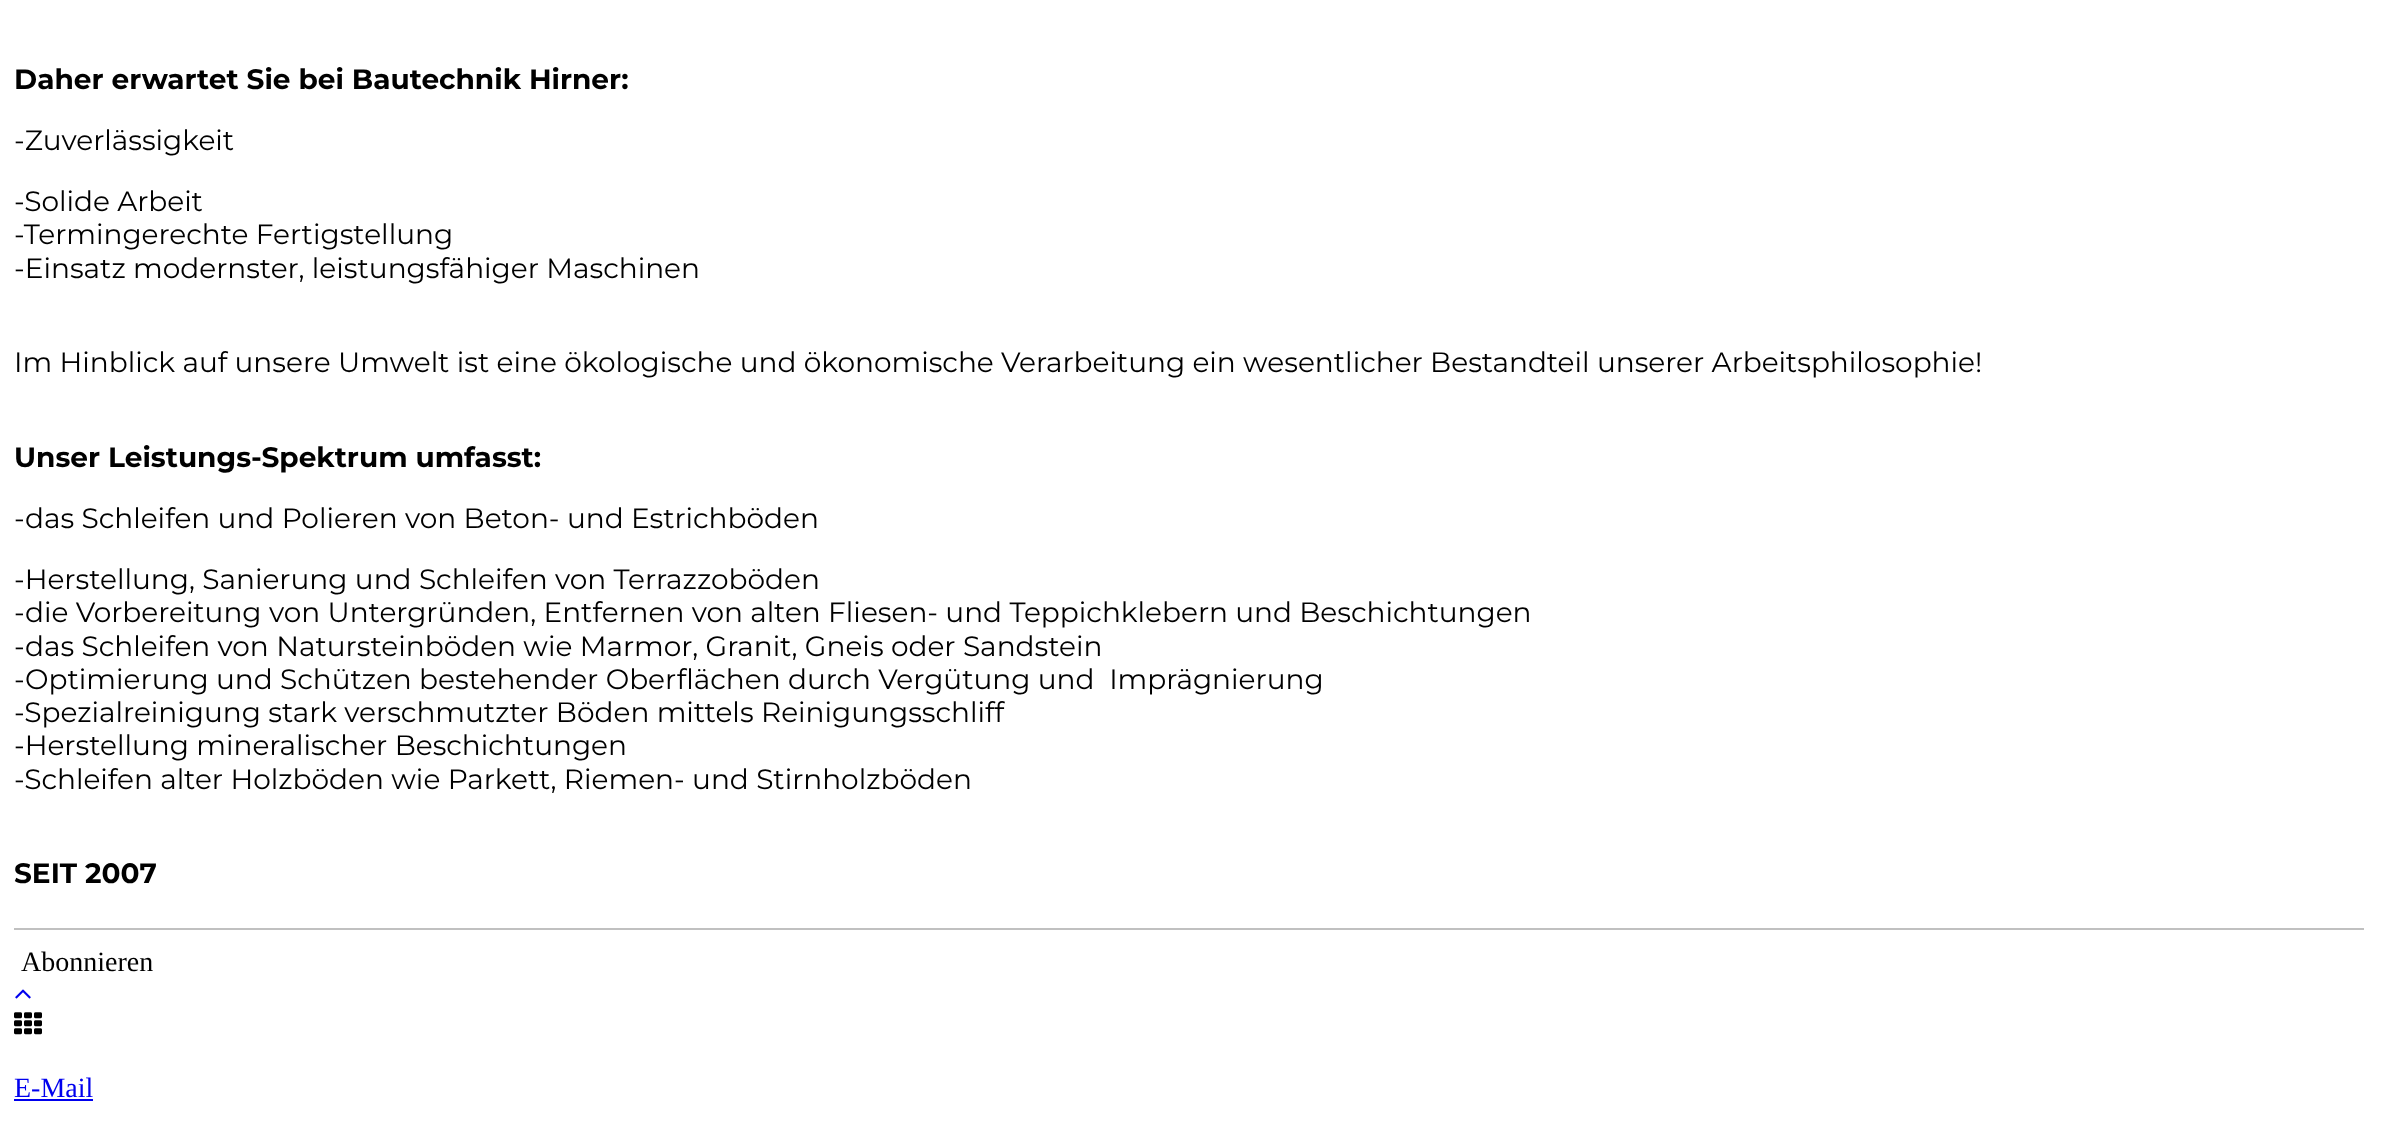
async function draw(canvas) {
	canvas.width = 2387;
	canvas.height = 1143;
	const c = canvas.getContext('2d');
	c.miterLimit = 4;
	c.fontKerning = 'normal';
	async function loadImage(src) {
		const img = new Image();
		img.src = src;
		await img.decode();
		return img;
	}

	c.fillStyle = '#fff';
	c.fillRect(0, 0, 2387, 1143);
	c.fillStyle = '#c0c0c0';
	c.fillRect(14, 928, 2350, 2);
	c.font = 'bold 28px Montserrat';
	c.fillStyle = '#000';
	c.fillText('Daher erwartet Sie bei Bautechnik Hirner:', 14, 89);
	c.font = '28px Montserrat';
	for (const [text, x, y] of [
		['-Zuverlässigkeit', 14, 150],
		['-Solide Arbeit', 14, 211],
		['-Termingerechte Fertigstellung', 14, 244],
		['-Einsatz modernster, leistungsfähiger Maschinen', 14, 278],
		['Im Hinblick auf unsere Umwelt ist eine ökologische und ökonomische Verarbeitung ein wesentlicher Bestandteil unserer Arbeitsphilosophie!', 14, 372],
	]) {
		c.fillText(text, x, y);
	}
	c.font = 'bold 28px Montserrat';
	c.fillText('Unser Leistungs-Spektrum umfasst:', 14, 467);
	c.font = '28px Montserrat';
	for (const [text, x, y] of [
		['-das Schleifen und Polieren von Beton- und Estrichböden', 14, 528],
		['-Herstellung, Sanierung und Schleifen von Terrazzoböden', 14, 589],
		['-die Vorbereitung von Untergründen, Entfernen von alten Fliesen- und Teppichklebern und Beschichtungen', 14, 622],
		['-das Schleifen von Natursteinböden wie Marmor, Granit, Gneis oder Sandstein', 14, 656],
		['-Optimierung und Schützen bestehender Oberflächen durch Vergütung und  Imprägnierung', 14, 689],
		['-Spezialreinigung stark verschmutzter Böden mittels Reinigungsschliff', 14, 722],
		['-Herstellung mineralischer Beschichtungen', 14, 755],
		['-Schleifen alter Holzböden wie Parkett, Riemen- und Stirnholzböden', 14, 789],
	]) {
		c.fillText(text, x, y);
	}
	c.font = 'bold 28px Montserrat';
	c.fillText('SEIT 2007', 14, 883);
	c.font = '28px Liberation Serif';
	c.fillText('Abonnieren', 21, 971);
	c.drawImage(await loadImage('img1.png'), 15, 989, 16, 10);
	c.drawImage(await loadImage('img2.png'), 14, 1012, 28, 23);
	c.fillStyle = '#00e';
	c.fillText('E-Mail', 14, 1097);
	c.fillRect(14, 1099, 79, 2);
}

draw(document.querySelector('canvas'));
